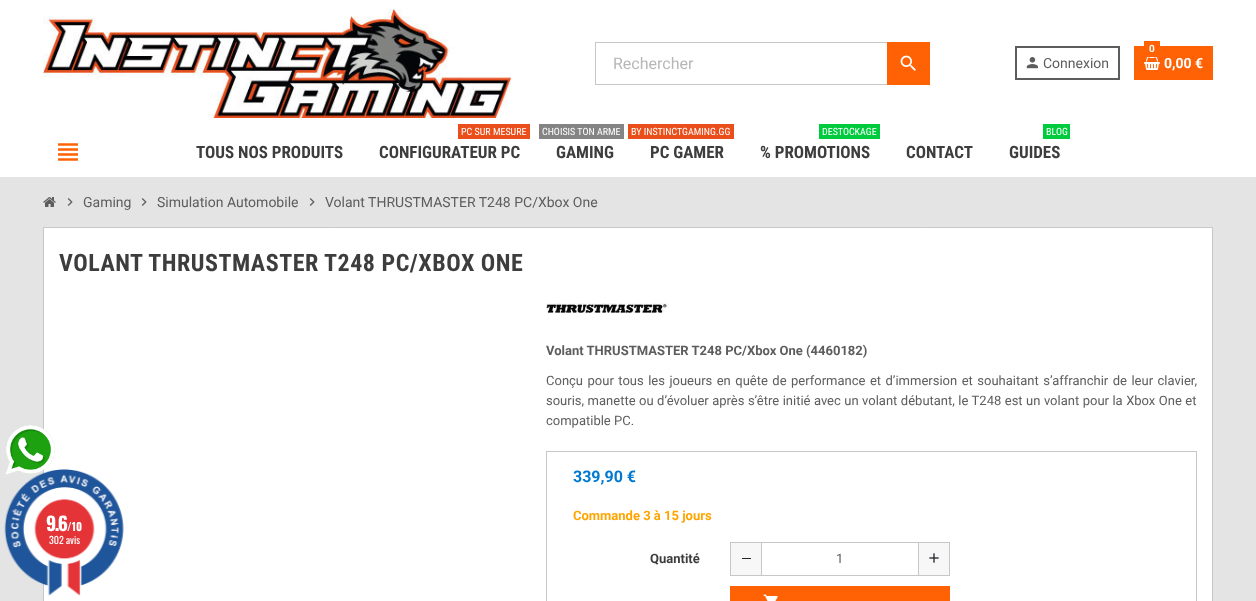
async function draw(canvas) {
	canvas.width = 1256;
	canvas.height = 601;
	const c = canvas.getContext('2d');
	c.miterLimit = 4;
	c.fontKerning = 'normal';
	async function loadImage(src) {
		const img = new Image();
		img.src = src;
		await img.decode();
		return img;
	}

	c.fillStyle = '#fff';
	c.fillRect(0, 0, 1256, 601);
	c.drawImage(await loadImage('img1.png'), 43, 9, 468, 109);
	c.strokeStyle = '#c7c7c7';
	c.strokeRect(595.5, 42.5, 333, 42);
	c.font = '16px Roboto';
	c.fillStyle = '#b7b7b7';
	c.fillText('Rechercher', 613, 69);
	c.fillStyle = '#ff6204';
	c.fillRect(887, 42, 43, 43);
	c.drawImage(await loadImage('img2.png'), 900, 55, 16, 16);
	c.strokeStyle = '#5d5d5d';
	c.lineWidth = 2;
	c.strokeRect(1016, 47, 103, 32);
	c.drawImage(await loadImage('img3.png'), 1026, 57, 12, 12);
	c.font = '14px Roboto';
	c.fillStyle = '#5d5d5d';
	c.fillText('Connexion', 1043, 68);
	c.fillStyle = '#ff6204';
	c.fillRect(1134, 46, 79, 34);
	c.fillRect(1144, 41, 16, 5);
	c.font = 'bold 10px Roboto';
	c.fillStyle = '#fff';
	c.fillText('0', 1149, 52);
	c.drawImage(await loadImage('img4.png'), 1144, 57, 16, 13);
	c.font = 'bold 14px Roboto';
	c.fillText('0,00 €', 1164, 68);
	c.drawImage(await loadImage('img5.png'), 58, 143, 20, 18);
	c.font = 'bold 17px Roboto Condensed';
	c.fillStyle = '#3d3d3d';
	c.fillText('TOUS NOS PRODUITS', 196, 158);
	c.fillStyle = '#e94e1b';
	c.fillRect(458, 124, 72, 15);
	c.font = '10px Roboto Condensed';
	c.fillStyle = '#fff';
	c.fillText('PC SUR MESURE', 461, 135);
	c.font = 'bold 17px Roboto Condensed';
	c.fillStyle = '#3d3d3d';
	c.fillText('CONFIGURATEUR PC', 379, 158);
	c.fillStyle = '#848484';
	c.fillRect(539, 124, 85, 15);
	c.font = '10px Roboto Condensed';
	c.fillStyle = '#fff';
	c.fillText('CHOISIS TON ARME', 542, 135);
	c.font = 'bold 17px Roboto Condensed';
	c.fillStyle = '#3d3d3d';
	c.fillText('GAMING', 556, 158);
	c.fillStyle = '#e94e1b';
	c.fillRect(628, 124, 106, 15);
	c.font = '10px Roboto Condensed';
	c.fillStyle = '#fff';
	c.fillText('BY INSTINCTGAMING.GG', 631, 135);
	c.font = 'bold 17px Roboto Condensed';
	c.fillStyle = '#3d3d3d';
	c.fillText('PC GAMER', 650, 158);
	c.fillStyle = '#00ca3d';
	c.fillRect(819, 124, 61, 15);
	c.font = '10px Roboto Condensed';
	c.fillStyle = '#fff';
	c.fillText('DESTOCKAGE', 822, 135);
	c.font = 'bold 17px Roboto Condensed';
	c.fillStyle = '#3d3d3d';
	c.fillText('% PROMOTIONS', 760, 158);
	c.fillText('CONTACT', 906, 158);
	c.fillStyle = '#00ca3d';
	c.fillRect(1043, 124, 27, 15);
	c.font = '10px Roboto Condensed';
	c.fillStyle = '#fff';
	c.fillText('BLOG', 1046, 135);
	c.font = 'bold 17px Roboto Condensed';
	c.fillStyle = '#3d3d3d';
	c.fillText('GUIDES', 1009, 158);
	c.fillStyle = '#e4e4e4';
	c.fillRect(0, 177, 1256, 424);
	c.fillStyle = '#fff';
	c.beginPath();
	c.rect(43.5, 227.5, 1169, 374);
	c.fill();
	c.strokeStyle = '#c7c7c7';
	c.lineWidth = 1;
	c.stroke();
	c.drawImage(await loadImage('img6.png'), 5, 425, 50, 50);
	c.drawImage(await loadImage('img7.png'), 43, 197, 13, 10);
	c.drawImage(await loadImage('img8.png'), 67, 198, 6, 8);
	c.font = '14px Roboto';
	c.fillStyle = '#5d5d5d';
	c.fillText('Gaming', 83, 207);
	c.drawImage(await loadImage('img8.png'), 141, 198, 6, 8);
	c.fillText('Simulation Automobile', 157, 207);
	c.drawImage(await loadImage('img8.png'), 309, 198, 6, 8);
	c.fillText('Volant THRUSTMASTER T248 PC/Xbox One', 325, 207);
	c.letterSpacing = '0.5px';
	c.font = 'bold 24px Roboto Condensed';
	c.fillStyle = '#3d3d3d';
	c.fillText('VOLANT THRUSTMASTER T248 PC/XBOX ONE', 59, 271);
	c.drawImage(await loadImage('img9.png'), 546, 303, 123, 10);
	c.letterSpacing = '0px';
	c.font = 'bold 13px Roboto';
	c.fillStyle = '#5d5d5d';
	c.fillText('Volant THRUSTMASTER T248 PC/Xbox One (4460182)', 546, 355);
	c.wordSpacing = '1.25px';
	c.font = '13px Roboto';
	c.fillText('Conçu pour tous les joueurs en quête de performance et d’immersion et souhaitant s’affranchir de leur clavier,', 546, 385);
	c.wordSpacing = '0.25px';
	c.fillText('souris, manette ou d’évoluer après s’être initié avec un volant débutant, le T248 est un volant pour la Xbox One et', 546, 405);
	c.wordSpacing = '0px';
	c.fillText('compatible PC.', 546, 425);
	c.strokeRect(546.5, 451.5, 650, 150);
	c.font = 'bold 16px Roboto';
	c.fillStyle = '#007ad1';
	c.fillText('339,90 €', 573, 482);
	c.font = 'bold 13px Roboto';
	c.fillStyle = '#ffa500';
	c.fillText('Commande 3 à 15 jours', 573, 520);
	c.fillStyle = '#3d3d3d';
	c.fillText('Quantité', 650, 563);
	c.strokeRect(730.5, 542.5, 219, 33);
	for (const [x, y, w, h, color] of [
		[731, 543, 30, 32, '#f7f7f7'],
		[742, 558, 9, 1, '#212529'],
		[918, 543, 1, 32, '#c7c7c7'],
		[761, 543, 1, 32, '#c7c7c7'],
	]) {
		c.fillStyle = color;
		c.fillRect(x, y, w, h);
	}
	c.font = '13px Roboto';
	c.fillStyle = '#5d5d5d';
	c.fillText('1', 836, 563);
	c.fillStyle = '#f7f7f7';
	c.fillRect(919, 543, 30, 32);
	c.drawImage(await loadImage('img10.png'), 929, 553, 10, 10);
	c.fillStyle = '#ff6204';
	c.fillRect(730, 586, 220, 15);
	c.drawImage(await loadImage('img11.png'), 763, 594, 15, 7);
	c.drawImage(await loadImage('img12.png'), 4, 468, 120, 128);
	c.letterSpacing = '-1.5px';
	c.font = 'bold 19px Oswald';
	c.fillStyle = '#fff';
	c.fillText('9.6', 46, 531);
	c.letterSpacing = '0px';
	c.font = 'bold 11px Oswald';
	c.fillText('/10', 67, 531);
	c.font = '10px Oswald';
	c.fillText('302 avis', 49, 544);
}

draw(document.querySelector('canvas'));
